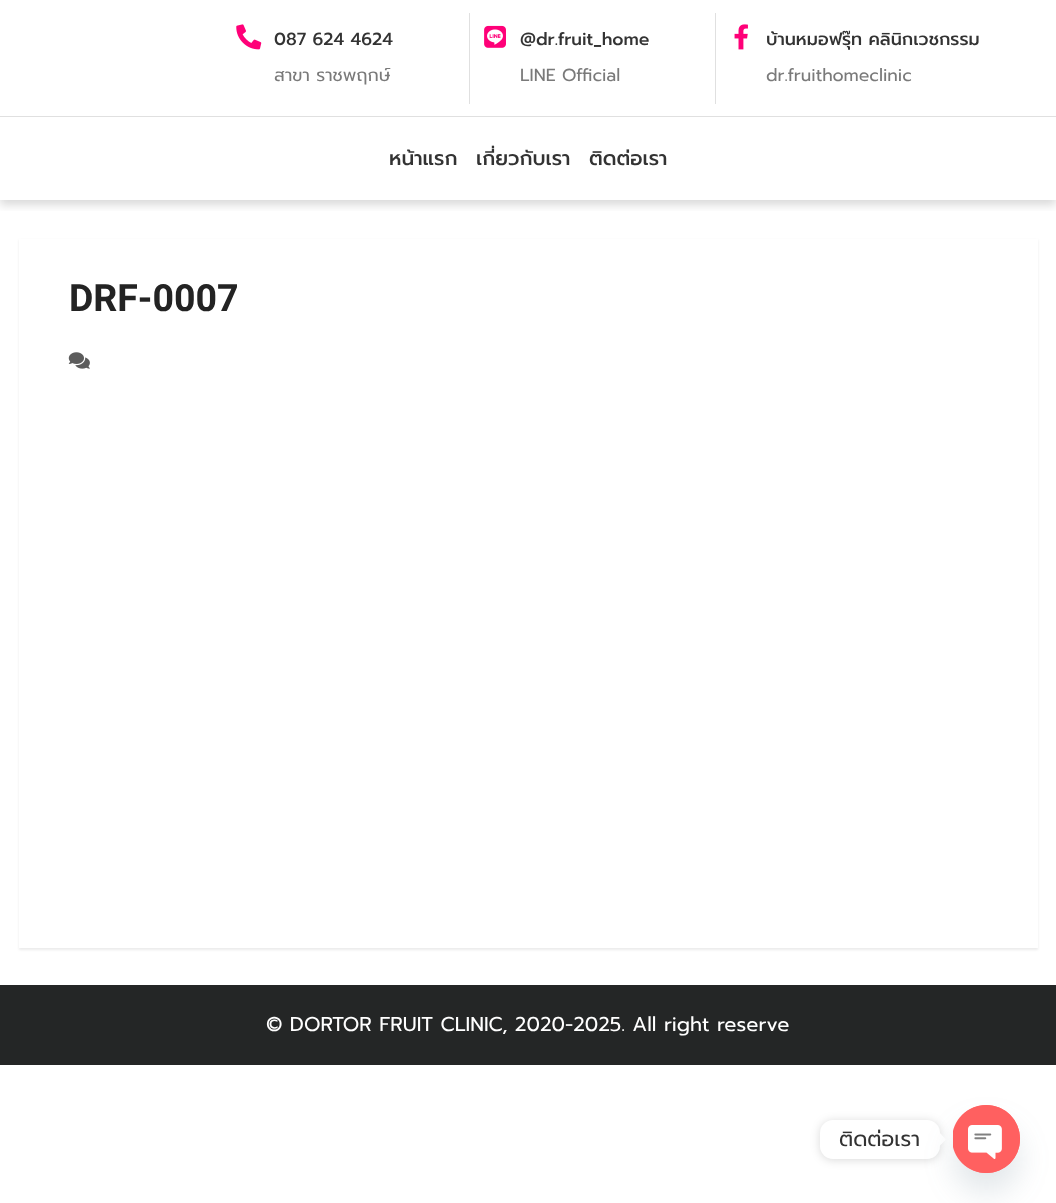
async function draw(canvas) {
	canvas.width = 1056;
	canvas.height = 1203;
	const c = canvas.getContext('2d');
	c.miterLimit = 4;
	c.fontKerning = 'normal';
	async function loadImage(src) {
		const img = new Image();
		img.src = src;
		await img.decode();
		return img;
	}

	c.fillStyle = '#fff';
	c.fillRect(0, 0, 1056, 1203);
	c.fillStyle = '#e0e0e0';
	c.fillRect(0, 116, 1056, 1);
	c.fillRect(469, 13, 1, 91);
	c.drawImage(await loadImage('img1.png'), 236, 24, 26, 26);
	c.font = '500 17.5px Prompt';
	c.fillStyle = '#333';
	c.fillText('087 624 4624', 274, 45);
	c.font = '17.5px Prompt';
	c.fillStyle = '#7a7a7a';
	c.fillText('สาขา ราชพฤกษ์', 274, 81);
	c.fillStyle = '#e0e0e0';
	c.fillRect(715, 13, 1, 91);
	c.drawImage(await loadImage('img2.png'), 484, 25, 22, 23);
	c.font = '500 17.5px Prompt';
	c.fillStyle = '#333';
	c.fillText('@dr.fruit_home', 520, 45);
	c.font = '17.5px Prompt';
	c.fillStyle = '#7a7a7a';
	c.fillText('LINE Official', 520, 81);
	c.drawImage(await loadImage('img3.png'), 734, 24, 14, 26);
	c.font = '500 17.5px Prompt';
	c.fillStyle = '#333';
	c.fillText('บ้านหมอฟรุ๊ท คลินิกเวชกรรม', 766, 45);
	c.font = '17.5px Prompt';
	c.fillStyle = '#7a7a7a';
	c.fillText('dr.fruithomeclinic', 766, 81);
	c.save();
	c.beginPath();
	c.rect(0, 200, 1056, 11);
	c.clip();
	c.fillStyle = '#00000026';
	c.filter = 'blur(5px)';
	c.beginPath();
	c.rect(0, 123, 1056, 82);
	c.fill();
	c.filter = 'none';
	c.restore();
	c.font = '500 20px Prompt';
	c.fillStyle = '#333';
	for (const [text, x, y] of [
		['หน้าแรก', 389, 165],
		['เกี่ยวกับเรา', 476, 165],
		['ติดต่อเรา', 589, 165],
	]) {
		c.fillText(text, x, y);
	}
	c.fillStyle = '#00000014';
	c.filter = 'blur(1px)';
	c.beginPath();
	c.rect(19, 240, 1019, 710);
	c.fill();
	c.filter = 'none';
	c.fillStyle = '#fff';
	c.fillRect(19, 239, 1019, 709);
	c.font = 'bold 37.5px Heebo';
	c.fillStyle = '#232323';
	c.fillText('DRF-0007', 69, 311);
	c.drawImage(await loadImage('img4.png'), 68, 352, 22, 17);
	c.fillStyle = '#242626';
	c.fillRect(0, 985, 1056, 80);
	c.font = '20px Prompt';
	c.fillStyle = '#fff';
	c.fillText('© DORTOR FRUIT CLINIC, 2020-2025. All right reserve', 266, 1031);
	c.fillStyle = '#00000026';
	c.filter = 'blur(5px)';
	c.beginPath();
	c.roundRect(820, 1121, 120, 39, 13);
	c.fill();
	c.filter = 'none';
	c.fillStyle = '#fff';
	c.beginPath();
	c.roundRect(820, 1120, 120, 39, 13);
	c.fill();
	c.font = '21px Prompt';
	c.fillStyle = '#333';
	c.fillText('ติดต่อเรา', 839, 1146);
	c.fillStyle = '#fff';
	c.beginPath();
	c.moveTo(940, 1145.5);
	c.lineTo(940, 1133);
	c.lineTo(946, 1139.5);
	c.closePath();
	c.fill();
	c.fillStyle = '#49687e29';
	c.filter = 'blur(15px)';
	c.beginPath();
	c.roundRect(953, 1125, 67, 68, 33.5);
	c.fill();
	c.filter = 'none';
	c.fillStyle = '#ff6060';
	c.beginPath();
	c.roundRect(953, 1105, 67, 68, 33.5);
	c.fill();
	c.drawImage(await loadImage('img5.png'), 953, 1105, 67, 68);
}

draw(document.querySelector('canvas'));
